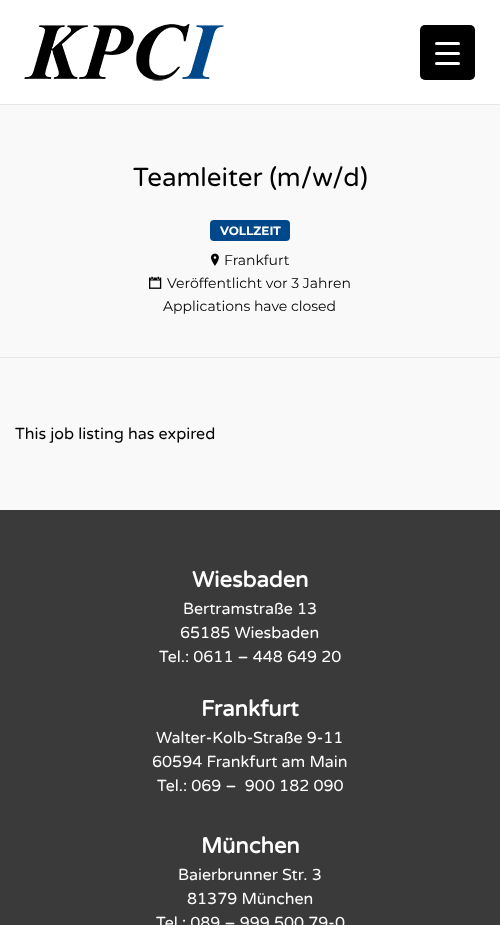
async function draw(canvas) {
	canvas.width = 500;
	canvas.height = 925;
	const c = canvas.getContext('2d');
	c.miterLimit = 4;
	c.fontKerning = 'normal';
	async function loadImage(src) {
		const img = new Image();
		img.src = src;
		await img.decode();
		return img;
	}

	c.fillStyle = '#f9f9f9';
	c.fillRect(0, 0, 500, 925);
	c.fillStyle = '#fff';
	c.fillRect(0, 0, 500, 104);
	c.fillStyle = '#000';
	c.beginPath();
	c.roundRect(420, 25, 55, 55, 5);
	c.fill();
	c.fillStyle = '#fff';
	c.beginPath();
	c.roundRect(435, 52, 25, 3, 1.5);
	c.fill();
	c.beginPath();
	c.roundRect(435, 42, 25, 3, 1.5);
	c.fill();
	c.beginPath();
	c.roundRect(435, 62, 25, 3, 1.5);
	c.fill();
	c.fillStyle = '#e6e6e6';
	c.fillRect(0, 104, 500, 1);
	c.drawImage(await loadImage('img1.png'), 24, 24, 200, 57);
	c.fillStyle = '#e7e7e7';
	c.fillRect(0, 357, 500, 1);
	c.font = '26px Varela Round';
	c.fillStyle = '#000';
	c.fillText('Teamleiter (m/w/d)', 133, 186);
	c.fillStyle = '#004889';
	c.beginPath();
	c.roundRect(210, 220, 80, 21, 4);
	c.fill();
	c.font = 'bold 12px Montserrat';
	c.fillStyle = '#fff';
	c.fillText('VOLLZEIT', 220, 235);
	c.drawImage(await loadImage('img2.png'), 211, 253, 8, 13);
	c.font = '14px Montserrat';
	c.fillStyle = '#000';
	c.fillText('Frankfurt', 224, 265);
	c.drawImage(await loadImage('img3.png'), 149, 276, 13, 13);
	c.fillText('Veröffentlicht vor 3 Jahren', 167, 288);
	c.fillText('Applications have closed', 163, 311);
	c.font = '16px Varela Round';
	c.fillText('This job listing has expired', 15, 439);
	c.fillStyle = '#3a3a3a';
	c.fillRect(0, 510, 500, 415);
	c.font = 'bold 22px Varela Round';
	c.fillStyle = '#fff';
	c.fillText('Wiesbaden', 192, 587);
	c.font = '16px Varela Round';
	for (const [text, x, y] of [
		['Bertramstraße 13', 183, 614],
		['65185 Wiesbaden', 180, 638],
		['Tel.: 0611 – 448 649 20', 159, 662],
	]) {
		c.fillText(text, x, y);
	}
	c.font = 'bold 22px Varela Round';
	c.fillText('Frankfurt', 201, 716);
	c.font = '16px Varela Round';
	for (const [text, x, y] of [
		['Walter-Kolb-Straße 9-11', 156, 743],
		['60594 Frankfurt am Main', 152, 767],
		['Tel.: 069 –  900 182 090', 157, 791],
	]) {
		c.fillText(text, x, y);
	}
	c.font = 'bold 22px Varela Round';
	c.fillText('München', 201, 853);
	c.font = '16px Varela Round';
	for (const [text, x, y] of [
		['Baierbrunner Str. 3', 178, 880],
		['81379 München', 187, 904],
		['Tel.: 089 – 999 500 79-0', 156, 928],
	]) {
		c.fillText(text, x, y);
	}
}

draw(document.querySelector('canvas'));
